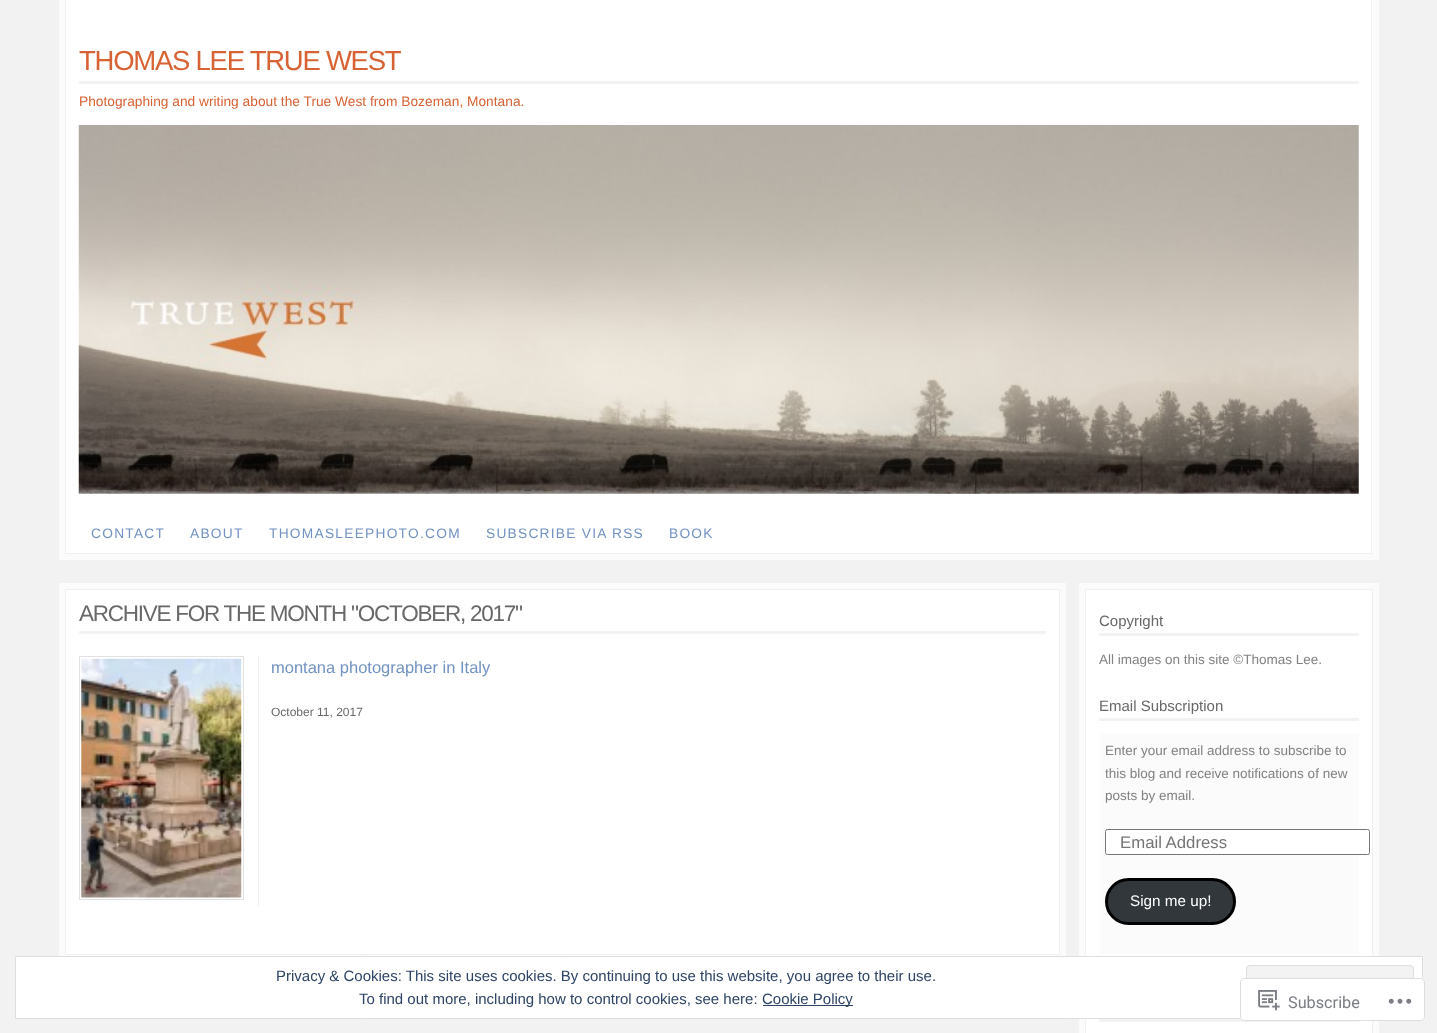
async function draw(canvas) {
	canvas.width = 1437;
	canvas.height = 1033;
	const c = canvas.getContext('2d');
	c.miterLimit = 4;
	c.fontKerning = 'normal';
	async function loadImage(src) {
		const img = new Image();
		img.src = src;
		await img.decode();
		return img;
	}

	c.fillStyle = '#f2f2f2';
	c.fillRect(0, 0, 1437, 1033);
	for (const [x, y, w, h, color] of [
		[59, 0, 1320, 560, '#fbfbfb'],
		[66, 0, 1307, 553, '#fff'],
		[1371, 0, 1, 554, '#f0f0f0'],
		[65, 553, 1308, 1, '#f0f0f0'],
		[65, 0, 1, 554, '#f0f0f0'],
		[79, 81, 1280, 3, '#f2f2f2'],
	]) {
		c.fillStyle = color;
		c.fillRect(x, y, w, h);
	}
	c.letterSpacing = '-1.25px';
	c.font = '27.5px Liberation Sans';
	c.fillStyle = '#d76233';
	c.fillText('THOMAS LEE TRUE WEST', 79, 70);
	c.letterSpacing = '0px';
	c.font = '13.75px Liberation Sans';
	c.fillText('Photographing and writing about the True West from Bozeman, Montana.', 79, 106);
	c.drawImage(await loadImage('img1.png'), 78, 125, 1281, 369);
	c.letterSpacing = '1.25px';
	c.fillStyle = '#7292c2';
	for (const [text, x, y] of [
		['CONTACT', 91, 538],
		['ABOUT', 190, 538],
		['THOMASLEEPHOTO.COM', 269, 538],
		['SUBSCRIBE VIA RSS', 486, 538],
		['BOOK', 669, 538],
	]) {
		c.fillText(text, x, y);
	}
	c.fillStyle = '#fbfbfb';
	c.fillRect(59, 583, 1007, 373);
	c.fillStyle = '#fff';
	c.beginPath();
	c.rect(65.5, 589.5, 994, 365);
	c.fill();
	c.strokeStyle = '#f0f0f0';
	c.stroke();
	c.fillStyle = '#f2f2f2';
	c.fillRect(79, 631, 967, 3);
	c.letterSpacing = '-1.25px';
	c.font = '22.5px Liberation Sans';
	c.fillStyle = '#686868';
	c.fillText('ARCHIVE FOR THE MONTH "OCTOBER, 2017"', 79, 621);
	c.fillStyle = '#f0f0f0';
	c.fillRect(258, 656, 1, 250);
	c.strokeStyle = '#e1e1e1';
	c.strokeRect(79.5, 656.5, 164, 243);
	c.drawImage(await loadImage('img2.png'), 81, 658, 161, 240);
	c.letterSpacing = '0px';
	c.font = '16.5px Liberation Sans';
	c.fillStyle = '#7292c2';
	c.fillText('montana photographer in Italy', 271, 673);
	c.font = '12px Liberation Sans';
	c.fillStyle = '#686868';
	c.fillText('October 11, 2017', 271, 716);
	c.fillStyle = '#fbfbfb';
	c.fillRect(1079, 583, 300, 450);
	c.fillStyle = '#fff';
	c.beginPath();
	c.rect(1085.5, 589.5, 287, 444);
	c.fill();
	c.strokeStyle = '#f0f0f0';
	c.stroke();
	c.fillStyle = '#f2f2f2';
	c.fillRect(1099, 633, 260, 3);
	c.font = '15px Liberation Sans';
	c.fillStyle = '#686868';
	c.fillText('Copyright', 1099, 626);
	c.font = '13.5px Liberation Sans';
	c.fillStyle = '#828282';
	c.fillText('All images on this site ©Thomas Lee.', 1099, 664);
	c.fillStyle = '#f2f2f2';
	c.fillRect(1099, 718, 260, 3);
	c.font = '15px Liberation Sans';
	c.fillStyle = '#686868';
	c.fillText('Email Subscription', 1099, 711);
	c.fillStyle = '#fbfbfb';
	c.fillRect(1099, 733, 260, 221);
	c.font = '13.5px Liberation Sans';
	c.fillStyle = '#828282';
	for (const [text, x, y] of [
		['Enter your email address to subscribe to', 1105, 755],
		['this blog and receive notifications of new', 1105, 778],
		['posts by email.', 1105, 800],
	]) {
		c.fillText(text, x, y);
	}
	c.fillStyle = '#fff';
	c.beginPath();
	c.roundRect(1105.5, 829.5, 264, 25, 2);
	c.fill();
	c.strokeStyle = '#767676';
	c.stroke();
	c.font = '16.75px Liberation Sans';
	c.fillStyle = '#757575';
	c.fillText('Email Address', 1120, 848);
	c.fillStyle = '#32373c';
	c.beginPath();
	c.roundRect(1106.5, 879.5, 128, 44, 22);
	c.fill();
	c.strokeStyle = '#000';
	c.lineWidth = 3;
	c.stroke();
	c.font = '15.25px Liberation Sans';
	c.fillStyle = '#fff';
	c.fillText('Sign me up!', 1130, 906);
	c.fillStyle = '#f2f2f2';
	c.fillRect(1099, 1019, 260, 3);
	c.fillStyle = '#fff';
	c.beginPath();
	c.rect(15.5, 956.5, 1407, 62);
	c.fill();
	c.strokeStyle = '#dedede';
	c.lineWidth = 1;
	c.stroke();
	c.font = '15px Liberation Sans';
	c.fillStyle = '#2e4467';
	c.fillText('Privacy & Cookies: This site uses cookies. By continuing to use this website, you agree to their use.', 276, 981);
	c.fillStyle = '#f3f3f3';
	c.beginPath();
	c.roundRect(1246.5, 965.5, 167, 44, 3.5);
	c.fill();
	c.stroke();
	c.fillStyle = '#2e4467';
	c.fillText('To find out more, including how to control cookies, see here:', 359, 1004);
	c.fillRect(763, 1005, 90, 1);
	c.fillText('Cookie Policy', 762, 1004);
	c.fillStyle = '#fffffffa';
	c.beginPath();
	c.roundRect(1240, 978, 185, 43, 4);
	c.fill();
	c.beginPath();
	c.roundRect(1240.5, 978.5, 184, 42, 3.5);
	c.strokeStyle = '#dcdcdefa';
	c.stroke();
	c.drawImage(await loadImage('img3.png'), 1258, 990, 22, 21);
	c.font = '16.25px Roboto';
	c.fillStyle = '#7a7e84';
	c.fillText('Subscribe', 1288, 1008);
	c.drawImage(await loadImage('img4.png'), 1388, 998, 24, 6);
}

draw(document.querySelector('canvas'));
